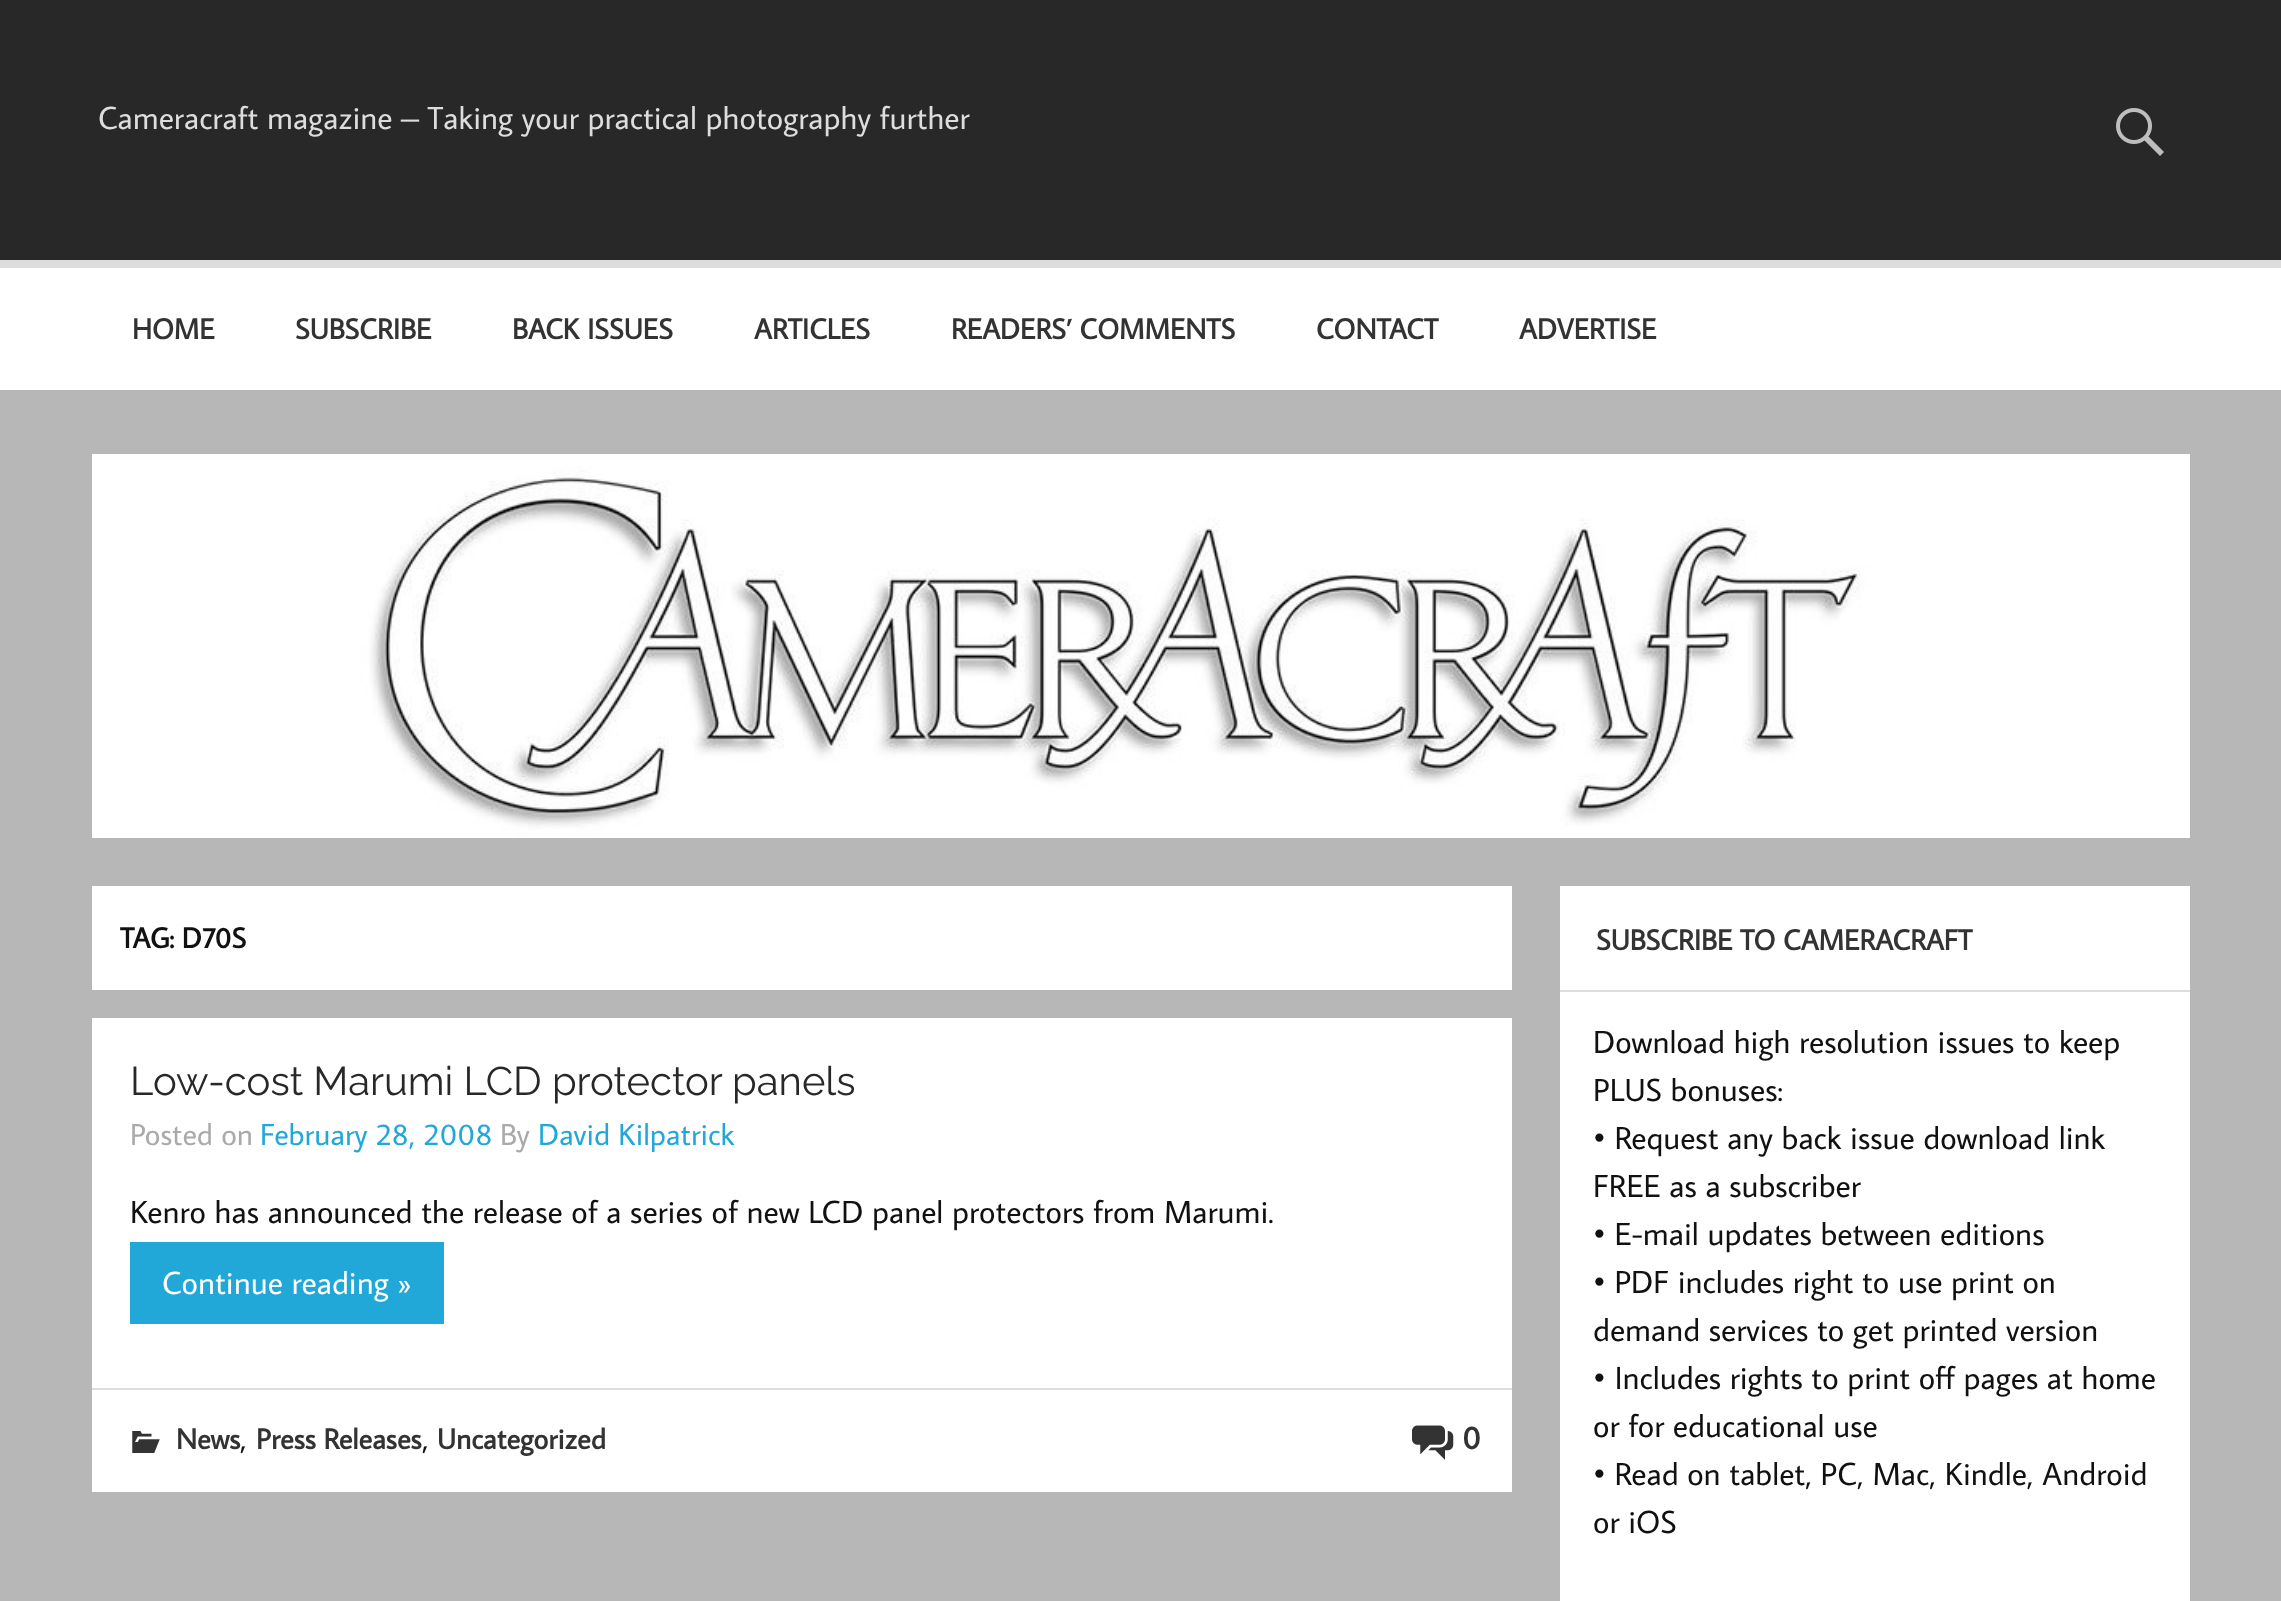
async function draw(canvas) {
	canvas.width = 2281;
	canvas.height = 1601;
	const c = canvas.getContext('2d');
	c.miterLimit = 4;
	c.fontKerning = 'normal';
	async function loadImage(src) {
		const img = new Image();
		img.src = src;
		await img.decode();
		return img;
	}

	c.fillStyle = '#b7b7b7';
	c.fillRect(0, 0, 2281, 1601);
	c.fillStyle = '#282828';
	c.fillRect(0, 0, 2281, 260);
	c.font = '32px Average Sans';
	c.fillStyle = '#ddd';
	c.fillText('Cameracraft magazine – Taking your practical photography further', 98, 129);
	c.drawImage(await loadImage('img1.png'), 2116, 108, 48, 48);
	c.fillStyle = '#fff';
	c.fillRect(0, 268, 2281, 122);
	c.fillStyle = '#ddd';
	c.fillRect(0, 260, 2281, 8);
	c.font = 'bold 28.75px Average Sans';
	c.fillStyle = '#333';
	for (const [text, x, y] of [
		['HOME', 132, 339],
		['SUBSCRIBE', 295, 339],
		['BACK ISSUES', 512, 339],
		['ARTICLES', 754, 339],
		['READERS’ COMMENTS', 951, 339],
		['CONTACT', 1316, 339],
		['ADVERTISE', 1519, 339],
	]) {
		c.fillText(text, x, y);
	}
	c.drawImage(await loadImage('img2.png'), 92, 454, 2098, 384);
	c.fillStyle = '#fff';
	c.fillRect(92, 886, 1420, 104);
	c.fillStyle = '#111';
	c.fillText('TAG: D70S', 120, 948);
	c.fillStyle = '#fff';
	c.fillRect(92, 1018, 1420, 474);
	c.font = '40px Raleway';
	c.fillStyle = '#282828';
	c.fillText('Low-cost Marumi LCD protector panels', 130, 1095);
	c.font = '30.5px Average Sans';
	c.fillStyle = '#aaa';
	c.fillText('Posted on', 130, 1145);
	c.fillStyle = '#22a8d8';
	c.fillText('February 28, 2008', 260, 1145);
	c.fillStyle = '#aaa';
	c.fillText('By', 500, 1145);
	c.fillStyle = '#22a8d8';
	c.fillText('David Kilpatrick', 538, 1145);
	c.font = '32px Average Sans';
	c.fillStyle = '#111';
	c.fillText('Kenro has announced the release of a series of new LCD panel protectors from Marumi.', 130, 1223);
	c.fillStyle = '#22a8d8';
	c.fillRect(130, 1242, 314, 82);
	c.fillStyle = '#fff';
	c.fillText('Continue reading »', 162, 1294);
	c.fillStyle = '#ddd';
	c.fillRect(92, 1388, 1420, 2);
	c.drawImage(await loadImage('img3.png'), 132, 1431, 28, 22);
	c.font = 'bold 28.75px Average Sans';
	c.fillStyle = '#333';
	c.fillText('News', 176, 1449);
	c.font = '32px Average Sans';
	c.fillStyle = '#111';
	c.fillText(',', 240, 1449);
	c.font = 'bold 28.75px Average Sans';
	c.fillStyle = '#333';
	c.fillText('Press Releases', 256, 1449);
	c.font = '32px Average Sans';
	c.fillStyle = '#111';
	c.fillText(',', 422, 1449);
	c.font = 'bold 28.75px Average Sans';
	c.fillStyle = '#333';
	c.fillText('Uncategorized', 437, 1449);
	c.drawImage(await loadImage('img4.png'), 1412, 1425, 42, 35);
	c.font = 'bold 32px Average Sans';
	c.fillText('0', 1462, 1449);
	c.fillStyle = '#fff';
	c.fillRect(1560, 886, 630, 715);
	c.fillStyle = '#ddd';
	c.fillRect(1560, 990, 630, 2);
	c.font = 'bold 28.75px Average Sans';
	c.fillStyle = '#333';
	c.fillText('SUBSCRIBE TO CAMERACRAFT', 1596, 950);
	c.font = '32px Average Sans';
	c.fillStyle = '#111';
	for (const [text, x, y] of [
		['Download high resolution issues to keep', 1593, 1053],
		['PLUS bonuses:', 1593, 1101],
		['• Request any back issue download link', 1593, 1149],
		['FREE as a subscriber', 1593, 1197],
		['• E-mail updates between editions', 1593, 1245],
		['• PDF includes right to use print on', 1593, 1293],
		['demand services to get printed version', 1593, 1341],
		['• Includes rights to print off pages at home', 1593, 1389],
		['or for educational use', 1593, 1437],
		['• Read on tablet, PC, Mac, Kindle, Android', 1593, 1485],
		['or iOS', 1593, 1533],
	]) {
		c.fillText(text, x, y);
	}
}

draw(document.querySelector('canvas'));
